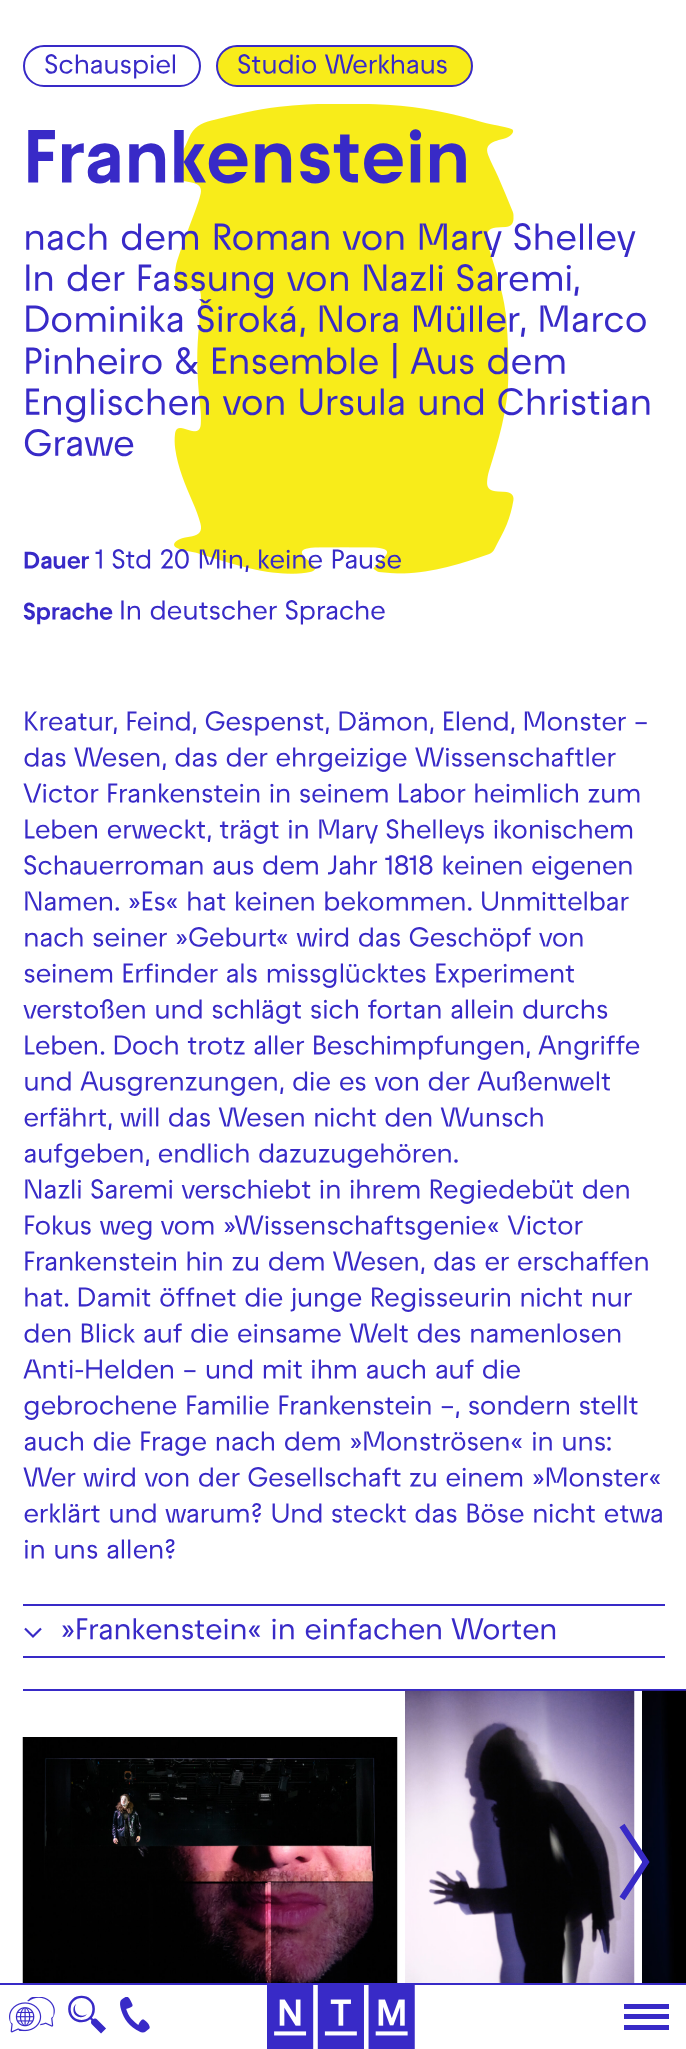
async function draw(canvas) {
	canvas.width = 686;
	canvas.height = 2049;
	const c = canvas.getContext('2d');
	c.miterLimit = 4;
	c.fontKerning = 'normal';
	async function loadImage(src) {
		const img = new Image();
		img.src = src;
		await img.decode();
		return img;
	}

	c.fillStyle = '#fff';
	c.fillRect(0, 0, 686, 2049);
	c.drawImage(await loadImage('img1.png'), 174, 104, 340, 470);
	c.beginPath();
	c.roundRect(24, 46, 176, 40, 20);
	c.strokeStyle = '#382ac7';
	c.lineWidth = 2;
	c.stroke();
	c.letterSpacing = '-0.55px';
	c.font = '500 27px "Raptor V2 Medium"';
	c.fillStyle = '#382ac7';
	c.fillText('Schauspiel', 44, 75);
	c.fillStyle = '#f8ec1a';
	c.beginPath();
	c.roundRect(217, 46, 255, 40, 20);
	c.fill();
	c.stroke();
	c.fillStyle = '#382ac7';
	c.fillText('Studio Werkhaus', 237, 75);
	c.font = 'bold 75px "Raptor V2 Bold"';
	c.fillText('Frankenstein', 23, 187);
	c.font = '500 37.5px "Raptor V2 Medium"';
	for (const [text, x, y] of [
		['nach dem Roman von Mary Shelley', 23, 252],
		['In der Fassung von Nazli Saremi,', 23, 293],
		['Dominika Široká, Nora Müller, Marco', 23, 334],
		['Pinheiro & Ensemble | Aus dem', 23, 376],
		['Englischen von Ursula und Christian', 23, 417],
		['Grawe', 23, 458],
	]) {
		c.fillText(text, x, y);
	}
	c.font = 'bold 24px "Raptor V2 Bold"';
	c.fillText('Dauer', 23, 570);
	c.font = '500 27px "Raptor V2 Medium"';
	c.fillText('1 Std 20 Min, keine Pause', 95, 570);
	c.font = 'bold 24px "Raptor V2 Bold"';
	c.fillText('Sprache', 23, 621);
	c.font = '500 27px "Raptor V2 Medium"';
	for (const [text, x, y] of [
		['In deutscher Sprache', 119, 621],
		['Kreatur, Feind, Gespenst, Dämon, Elend, Monster –', 23, 732],
		['das Wesen, das der ehrgeizige Wissenschaftler', 23, 768],
		['Victor Frankenstein in seinem Labor heimlich zum', 23, 804],
		['Leben erweckt, trägt in Mary Shelleys ikonischem', 23, 840],
		['Schauerroman aus dem Jahr 1818 keinen eigenen', 23, 876],
		['Namen. »Es« hat keinen bekommen. Unmittelbar', 23, 912],
		['nach seiner »Geburt« wird das Geschöpf von', 23, 948],
		['seinem Erfinder als missglücktes Experiment', 23, 984],
		['verstoßen und schlägt sich fortan allein durchs', 23, 1020],
		['Leben. Doch trotz aller Beschimpfungen, Angriffe', 23, 1056],
		['und Ausgrenzungen, die es von der Außenwelt', 23, 1092],
		['erfährt, will das Wesen nicht den Wunsch', 23, 1128],
		['aufgeben, endlich dazuzugehören.', 23, 1164],
		['Nazli Saremi verschiebt in ihrem Regiedebüt den', 23, 1200],
		['Fokus weg vom »Wissenschaftsgenie« Victor', 23, 1236],
		['Frankenstein hin zu dem Wesen, das er erschaffen', 23, 1272],
		['hat. Damit öffnet die junge Regisseurin nicht nur', 23, 1308],
		['den Blick auf die einsame Welt des namenlosen', 23, 1344],
		['Anti-Helden – und mit ihm auch auf die', 23, 1380],
		['gebrochene Familie Frankenstein –, sondern stellt', 23, 1416],
		['auch die Frage nach dem »Monströsen« in uns:', 23, 1452],
		['Wer wird von der Gesellschaft zu einem »Monster«', 23, 1488],
		['erklärt und warum? Und steckt das Böse nicht etwa', 23, 1524],
		['in uns allen?', 23, 1560],
	]) {
		c.fillText(text, x, y);
	}
	c.fillRect(23, 1604, 642, 2);
	c.fillRect(23, 1656, 642, 2);
	c.beginPath();
	c.moveTo(25, 1628.5);
	c.lineTo(33, 1636.5);
	c.lineTo(41, 1628.5);
	c.lineWidth = 2.2;
	c.stroke();
	c.font = '500 30px "Raptor V2 Medium"';
	c.fillText('»Frankenstein« in einfachen Worten', 60, 1641);
	c.fillRect(23, 1689, 663, 2);
	c.drawImage(await loadImage('img2.png'), 22, 1737, 376, 246);
	c.drawImage(await loadImage('img3.png'), 405, 1690, 230, 293);
	c.drawImage(await loadImage('img4.png'), 642, 1690, 44, 293);
	c.beginPath();
	c.moveTo(622, 1898.5);
	c.lineTo(646, 1862);
	c.lineTo(622, 1825.5);
	c.lineWidth = 6;
	c.stroke();
	c.fillRect(0, 1983, 686, 2);
	c.drawImage(await loadImage('img5.png'), 9, 1997, 46, 36);
	c.font = '500 52px "Raptor V2 Medium"';
	c.fillText('🔍', 64, 2036);
	c.drawImage(await loadImage('img6.png'), 120, 1997, 30, 36);
	c.drawImage(await loadImage('img7.png'), 267, 1985, 148, 64);
	for (const [x, y, w, h, color] of [
		[624, 2004, 45, 5, '#382ac7'],
		[624, 2014, 45, 5, '#382ac7'],
		[624, 2025, 45, 5, '#382ac7'],
	]) {
		c.fillStyle = color;
		c.fillRect(x, y, w, h);
	}
}

draw(document.querySelector('canvas'));
